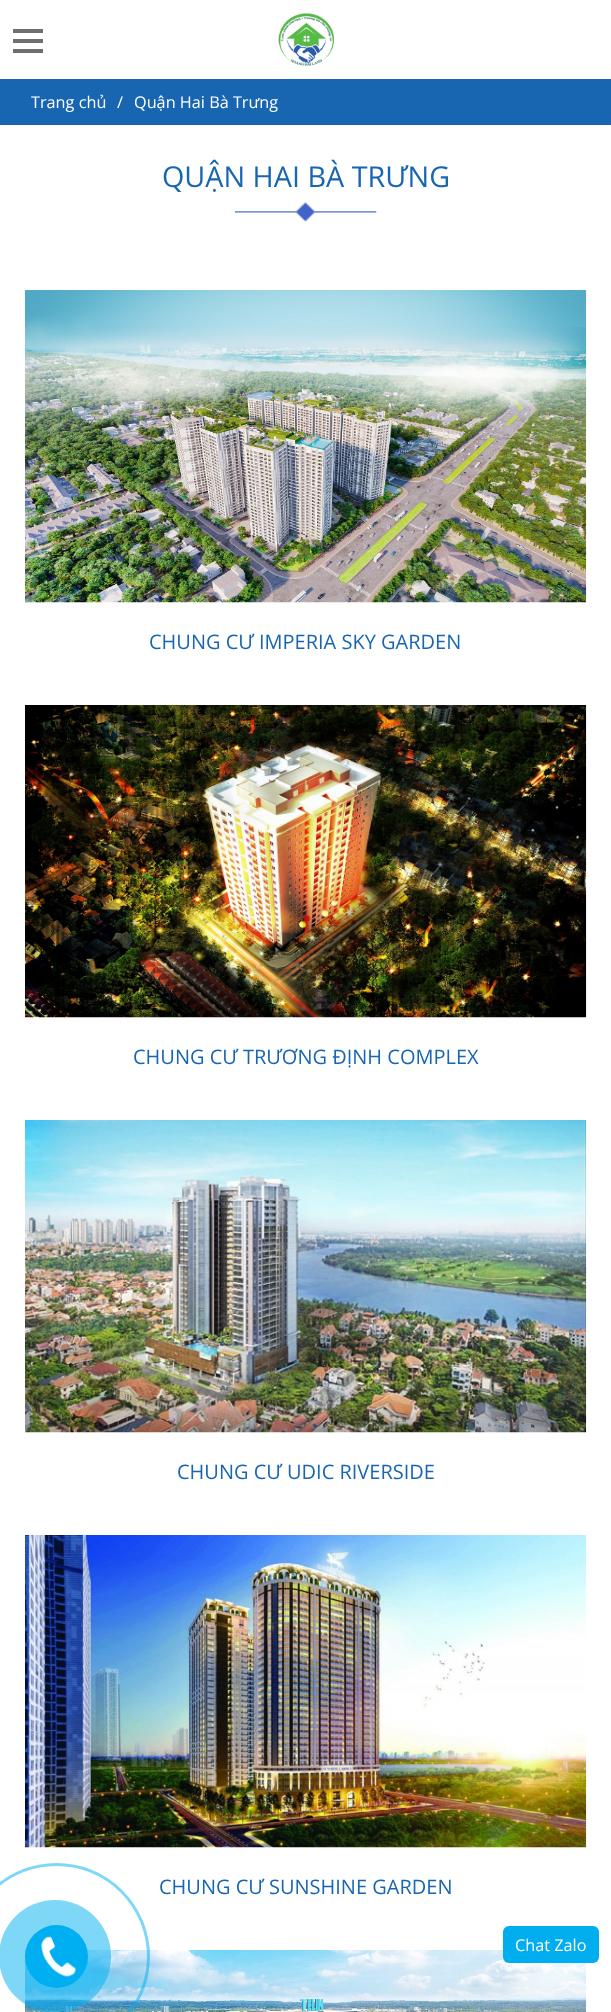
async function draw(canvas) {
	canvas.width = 611;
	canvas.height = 2012;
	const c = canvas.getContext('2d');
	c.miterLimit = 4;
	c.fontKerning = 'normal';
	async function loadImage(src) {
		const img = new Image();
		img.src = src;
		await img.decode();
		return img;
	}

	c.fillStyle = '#fff';
	c.fillRect(0, 0, 611, 2012);
	for (const [x, y, w, h, color] of [
		[13, 29, 30, 4, '#6f6f6f'],
		[13, 39, 30, 4, '#6f6f6f'],
		[13, 49, 30, 4, '#6f6f6f'],
	]) {
		c.fillStyle = color;
		c.fillRect(x, y, w, h);
	}
	c.drawImage(await loadImage('img1.png'), 278, 13, 57, 53);
	c.fillStyle = '#1866b1';
	c.fillRect(0, 79, 611, 46);
	c.font = '16.25px Open Sans';
	c.fillStyle = '#fff';
	for (const [text, x, y] of [
		['Trang chủ', 31, 108],
		['/', 117, 108],
		['Quận Hai Bà Trưng', 134, 108],
	]) {
		c.fillText(text, x, y);
	}
	c.font = '28.75px Open Sans';
	c.fillStyle = '#1866b1';
	c.fillText('QUẬN HAI BÀ TRƯNG', 162, 187);
	c.drawImage(await loadImage('img2.png'), 235, 202, 142, 20);
	c.drawImage(await loadImage('img3.png'), 25, 290, 562, 313);
	c.font = '20px Open Sans';
	c.fillText('CHUNG CƯ IMPERIA SKY GARDEN', 149, 649);
	c.drawImage(await loadImage('img4.png'), 25, 705, 562, 313);
	c.fillText('CHUNG CƯ TRƯƠNG ĐỊNH COMPLEX', 133, 1064);
	c.drawImage(await loadImage('img5.png'), 25, 1120, 562, 313);
	c.fillText('CHUNG CƯ UDIC RIVERSIDE', 177, 1479);
	c.drawImage(await loadImage('img6.png'), 25, 1535, 562, 313);
	c.fillText('CHUNG CƯ SUNSHINE GARDEN', 159, 1894);
	c.drawImage(await loadImage('img7.png'), 25, 1950, 562, 62);
	c.beginPath();
	c.arc(56.5, 1956.5, 92, 0, 2 * Math.PI);
	c.strokeStyle = '#00aff280';
	c.lineWidth = 3;
	c.stroke();
	c.fillStyle = '#00aff280';
	c.beginPath();
	c.roundRect(-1, 1900, 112, 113, 56);
	c.fill();
	c.fillStyle = '#00aff2';
	c.beginPath();
	c.arc(56.5, 1956.5, 31.5, 0, 2 * Math.PI);
	c.fill();
	c.drawImage(await loadImage('img8.png'), 41, 1936, 35, 41);
	c.fillStyle = '#00aeef';
	c.beginPath();
	c.roundRect(503, 1926, 96, 37, 6);
	c.fill();
	c.font = '16.25px Open Sans';
	c.fillStyle = '#fff';
	c.fillText('Chat Zalo', 515, 1951);
}

draw(document.querySelector('canvas'));
